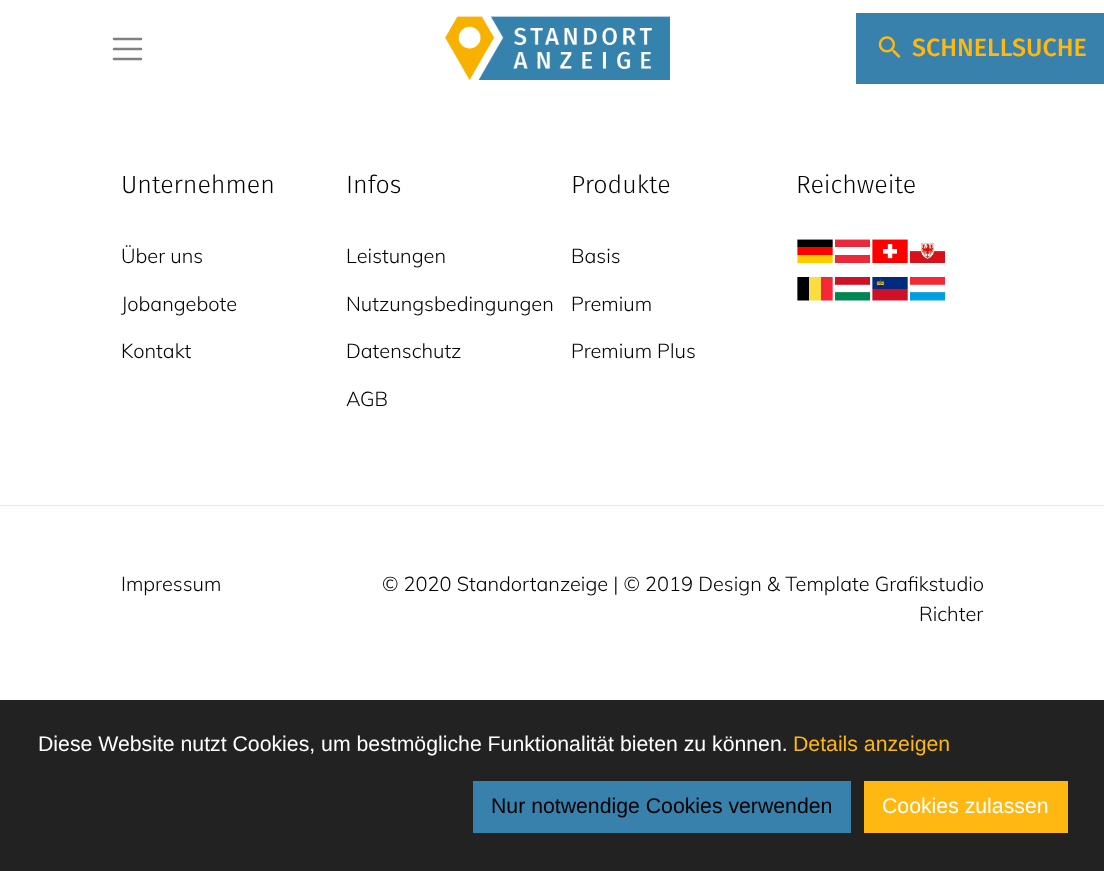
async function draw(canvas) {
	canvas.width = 1104;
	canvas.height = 871;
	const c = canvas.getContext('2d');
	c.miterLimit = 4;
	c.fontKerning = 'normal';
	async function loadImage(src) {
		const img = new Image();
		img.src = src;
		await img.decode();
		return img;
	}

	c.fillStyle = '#fff';
	c.fillRect(0, 0, 1104, 871);
	c.beginPath();
	c.moveTo(114, 39);
	c.lineTo(141, 39);
	c.moveTo(114, 49);
	c.lineTo(141, 49);
	c.moveTo(114, 59);
	c.lineTo(141, 59);
	c.strokeStyle = '#808080';
	c.lineWidth = 2.5;
	c.lineCap = 'round';
	c.stroke();
	c.drawImage(await loadImage('img1.png'), 445, 16, 225, 64);
	c.fillStyle = '#3781ac';
	c.fillRect(856, 13, 248, 71);
	c.drawImage(await loadImage('img2.png'), 878, 36, 23, 22);
	c.font = '500 25px Fira Sans';
	c.fillStyle = '#feb811';
	c.fillText('SCHNELLSUCHE', 912, 56);
	c.font = '300 25px Fira Sans';
	c.fillStyle = '#000';
	c.fillText('Unternehmen', 121, 193);
	c.font = '300 20px Muli';
	for (const [text, x, y] of [
		['Über uns', 121, 263],
		['Jobangebote', 121, 311],
		['Kontakt', 121, 358],
	]) {
		c.fillText(text, x, y);
	}
	c.font = '300 25px Fira Sans';
	c.fillText('Infos', 346, 193);
	c.font = '300 20px Muli';
	for (const [text, x, y] of [
		['Leistungen', 346, 263],
		['Nutzungsbedingungen', 346, 311],
		['Datenschutz', 346, 358],
		['AGB', 346, 406],
	]) {
		c.fillText(text, x, y);
	}
	c.font = '300 25px Fira Sans';
	c.fillText('Produkte', 571, 193);
	c.font = '300 20px Muli';
	for (const [text, x, y] of [
		['Basis', 571, 263],
		['Premium', 571, 311],
		['Premium Plus', 571, 358],
	]) {
		c.fillText(text, x, y);
	}
	c.font = '300 25px Fira Sans';
	c.fillText('Reichweite', 796, 193);
	c.drawImage(await loadImage('img3.png'), 797, 239, 36, 24);
	c.drawImage(await loadImage('img4.png'), 835, 239, 35, 24);
	c.drawImage(await loadImage('img5.png'), 872, 239, 36, 24);
	c.drawImage(await loadImage('img6.png'), 910, 243, 35, 20);
	c.drawImage(await loadImage('img7.png'), 797, 277, 36, 24);
	c.drawImage(await loadImage('img8.png'), 835, 277, 35, 24);
	c.drawImage(await loadImage('img9.png'), 872, 277, 36, 24);
	c.drawImage(await loadImage('img10.png'), 910, 277, 35, 24);
	c.fillStyle = '#eae8e8';
	c.fillRect(0, 505, 1104, 1);
	c.font = '300 20px Muli';
	c.fillStyle = '#000';
	for (const [text, x, y] of [
		['Impressum', 121, 591],
		['© 2020 Standortanzeige | © 2019 Design & Template Grafikstudio', 382, 591],
		['Richter', 919, 621],
	]) {
		c.fillText(text, x, y);
	}
	c.fillStyle = '#222';
	c.fillRect(0, 700, 1104, 171);
	c.font = '21.25px Liberation Sans';
	c.fillStyle = '#fff';
	c.fillText('Diese Website nutzt Cookies, um bestmögliche Funktionalität bieten zu können.', 38, 751);
	c.fillStyle = '#feb811';
	c.fillText('Details anzeigen', 793, 751);
	c.fillStyle = '#3781ac';
	c.fillRect(473, 781, 378, 52);
	c.fillStyle = '#000';
	c.fillText('Nur notwendige Cookies verwenden', 491, 813);
	c.fillStyle = '#feb811';
	c.fillRect(864, 781, 204, 52);
	c.fillStyle = '#fff';
	c.fillText('Cookies zulassen', 882, 813);
}

draw(document.querySelector('canvas'));
